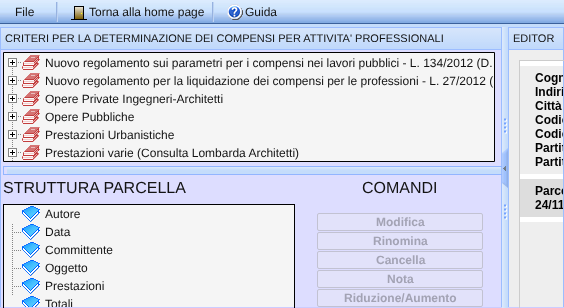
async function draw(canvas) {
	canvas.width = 564;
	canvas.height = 308;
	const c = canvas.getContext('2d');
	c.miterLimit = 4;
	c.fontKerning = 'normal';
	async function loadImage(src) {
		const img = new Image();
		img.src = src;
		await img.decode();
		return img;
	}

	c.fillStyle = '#ccf';
	c.fillRect(0, 0, 564, 308);
	c.fillStyle = '#c4dcfb';
	c.fillRect(0, 24, 564, 3);
	c.drawImage(await loadImage('img1.png'), 0, 0, 564, 24);
	c.font = '12px Liberation Sans';
	c.fillStyle = '#131313';
	c.fillText('File', 15, 16);
	c.drawImage(await loadImage('img2.png'), 56, 2, 2, 20);
	c.drawImage(await loadImage('img3.png'), 71, 6, 16, 14);
	c.fillText('Torna alla home page', 89, 16);
	c.drawImage(await loadImage('img2.png'), 212, 2, 2, 20);
	c.drawImage(await loadImage('img4.png'), 227, 4, 16, 16);
	c.fillText('Guida', 245, 16);
	c.fillStyle = '#9cbdff';
	c.fillRect(501, 27, 1, 280);
	c.fillRect(0, 27, 1, 280);
	c.drawImage(await loadImage('img5.png'), 1, 27, 500, 23);
	c.font = '11px Liberation Sans';
	c.fillStyle = '#131313';
	c.fillText('CRITERI PER LA DETERMINAZIONE DEI COMPENSI PER ATTIVITA\' PROFESSIONALI', 5, 42);
	c.fillStyle = '#ddf';
	c.fillRect(1, 50, 500, 257);
	c.fillStyle = '#f5f5f5';
	c.beginPath();
	c.rect(3.5, 52.5, 491, 109);
	c.fill();
	c.strokeStyle = '#000';
	c.stroke();
	c.drawImage(await loadImage('img6.png'), 8, 58, 13, 13);
	c.drawImage(await loadImage('img7.png'), 22, 55, 18, 16);
	c.font = '12px Liberation Sans';
	c.fillStyle = '#131313';
	c.fillText('Nuovo regolamento sui parametri per i compensi nei lavori pubblici - L. 134/2012 (D.', 45, 67);
	c.drawImage(await loadImage('img8.png'), 8, 72, 13, 17);
	c.drawImage(await loadImage('img7.png'), 22, 73, 18, 16);
	c.fillText('Nuovo regolamento per la liquidazione dei compensi per le professioni - L. 27/2012 (', 45, 85);
	c.drawImage(await loadImage('img8.png'), 8, 90, 13, 17);
	c.drawImage(await loadImage('img7.png'), 22, 91, 18, 16);
	c.fillText('Opere Private Ingegneri-Architetti', 45, 103);
	c.drawImage(await loadImage('img8.png'), 8, 108, 13, 17);
	c.drawImage(await loadImage('img7.png'), 22, 109, 18, 16);
	c.fillText('Opere Pubbliche', 45, 121);
	c.drawImage(await loadImage('img8.png'), 8, 126, 13, 17);
	c.drawImage(await loadImage('img7.png'), 22, 127, 18, 16);
	c.fillText('Prestazioni Urbanistiche', 45, 139);
	c.drawImage(await loadImage('img8.png'), 8, 144, 13, 17);
	c.drawImage(await loadImage('img7.png'), 22, 145, 18, 16);
	c.fillText('Prestazioni varie (Consulta Lombarda Architetti)', 45, 157);
	c.strokeStyle = '#92b5ff';
	c.strokeRect(3.5, 166.5, 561, 8);
	c.drawImage(await loadImage('img9.png'), 7, 167, 494, 7);
	c.font = '16px Liberation Sans';
	c.fillText('STRUTTURA PARCELLA', 3, 193);
	c.fillText('COMANDI', 362, 193);
	c.fillStyle = '#f5f5f5';
	c.fillRect(4, 205, 290, 102);
	c.strokeStyle = '#000';
	c.strokeRect(3.5, 204.5, 291, 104);
	c.drawImage(await loadImage('img10.png'), 22, 206, 18, 16);
	c.font = '12px Liberation Sans';
	c.fillStyle = '#131313';
	c.fillText('Autore', 45, 218);
	c.drawImage(await loadImage('img11.png'), 12, 224, 9, 17);
	c.drawImage(await loadImage('img10.png'), 22, 224, 18, 16);
	c.fillText('Data', 45, 236);
	c.drawImage(await loadImage('img11.png'), 12, 242, 9, 17);
	c.drawImage(await loadImage('img10.png'), 22, 242, 18, 16);
	c.fillText('Committente', 45, 254);
	c.drawImage(await loadImage('img11.png'), 12, 260, 9, 17);
	c.drawImage(await loadImage('img10.png'), 22, 260, 18, 16);
	c.fillText('Oggetto', 45, 272);
	c.drawImage(await loadImage('img11.png'), 12, 278, 9, 17);
	c.drawImage(await loadImage('img10.png'), 22, 278, 18, 16);
	c.fillText('Prestazioni', 45, 290);
	c.drawImage(await loadImage('img12.png'), 22, 296, 18, 11);
	c.save();
	c.beginPath();
	c.rect(4, 205, 290, 102);
	c.clip();
	c.fillText('Totali', 45, 308);
	c.restore();
	c.fillStyle = '#e2e2fa';
	c.beginPath();
	c.roundRect(317.5, 213.5, 165, 17, 1.5);
	c.fill();
	c.strokeStyle = '#c2c2d2';
	c.stroke();
	c.font = 'bold 12px Liberation Sans';
	c.fillStyle = '#a3a3b4';
	c.fillText('Modifica', 376, 226);
	c.fillStyle = '#e2e2fa';
	c.beginPath();
	c.roundRect(317.5, 232.5, 165, 17, 1.5);
	c.fill();
	c.stroke();
	c.fillStyle = '#a3a3b4';
	c.fillText('Rinomina', 373, 245);
	c.fillStyle = '#e2e2fa';
	c.beginPath();
	c.roundRect(317.5, 251.5, 165, 17, 1.5);
	c.fill();
	c.stroke();
	c.fillStyle = '#a3a3b4';
	c.fillText('Cancella', 376, 264);
	c.fillStyle = '#e2e2fa';
	c.beginPath();
	c.roundRect(317.5, 270.5, 165, 17, 1.5);
	c.fill();
	c.stroke();
	c.fillStyle = '#a3a3b4';
	c.fillText('Nota', 387, 283);
	c.fillStyle = '#e2e2fa';
	c.beginPath();
	c.roundRect(317.5, 289.5, 165, 17, 1.5);
	c.fill();
	c.stroke();
	c.fillStyle = '#a3a3b4';
	c.fillText('Riduzione/Aumento', 344, 302);
	c.drawImage(await loadImage('img13.png'), 502, 27, 6, 281);
	c.drawImage(await loadImage('img14.png'), 502, 148, 6, 40);
	c.fillStyle = '#9cbdff';
	c.fillRect(563, 27, 1, 280);
	c.fillRect(508, 27, 1, 280);
	c.drawImage(await loadImage('img15.png'), 509, 27, 54, 23);
	c.font = '11px Liberation Sans';
	c.fillStyle = '#131313';
	c.fillText('EDITOR', 513, 42);
	c.fillStyle = '#eee';
	c.fillRect(509, 50, 54, 257);
	c.strokeStyle = '#ccc';
	c.strokeRect(519.5, 60.5, 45, 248);
	c.drawImage(await loadImage('img16.png'), 520, 61, 43, 161);
}

draw(document.querySelector('canvas'));
